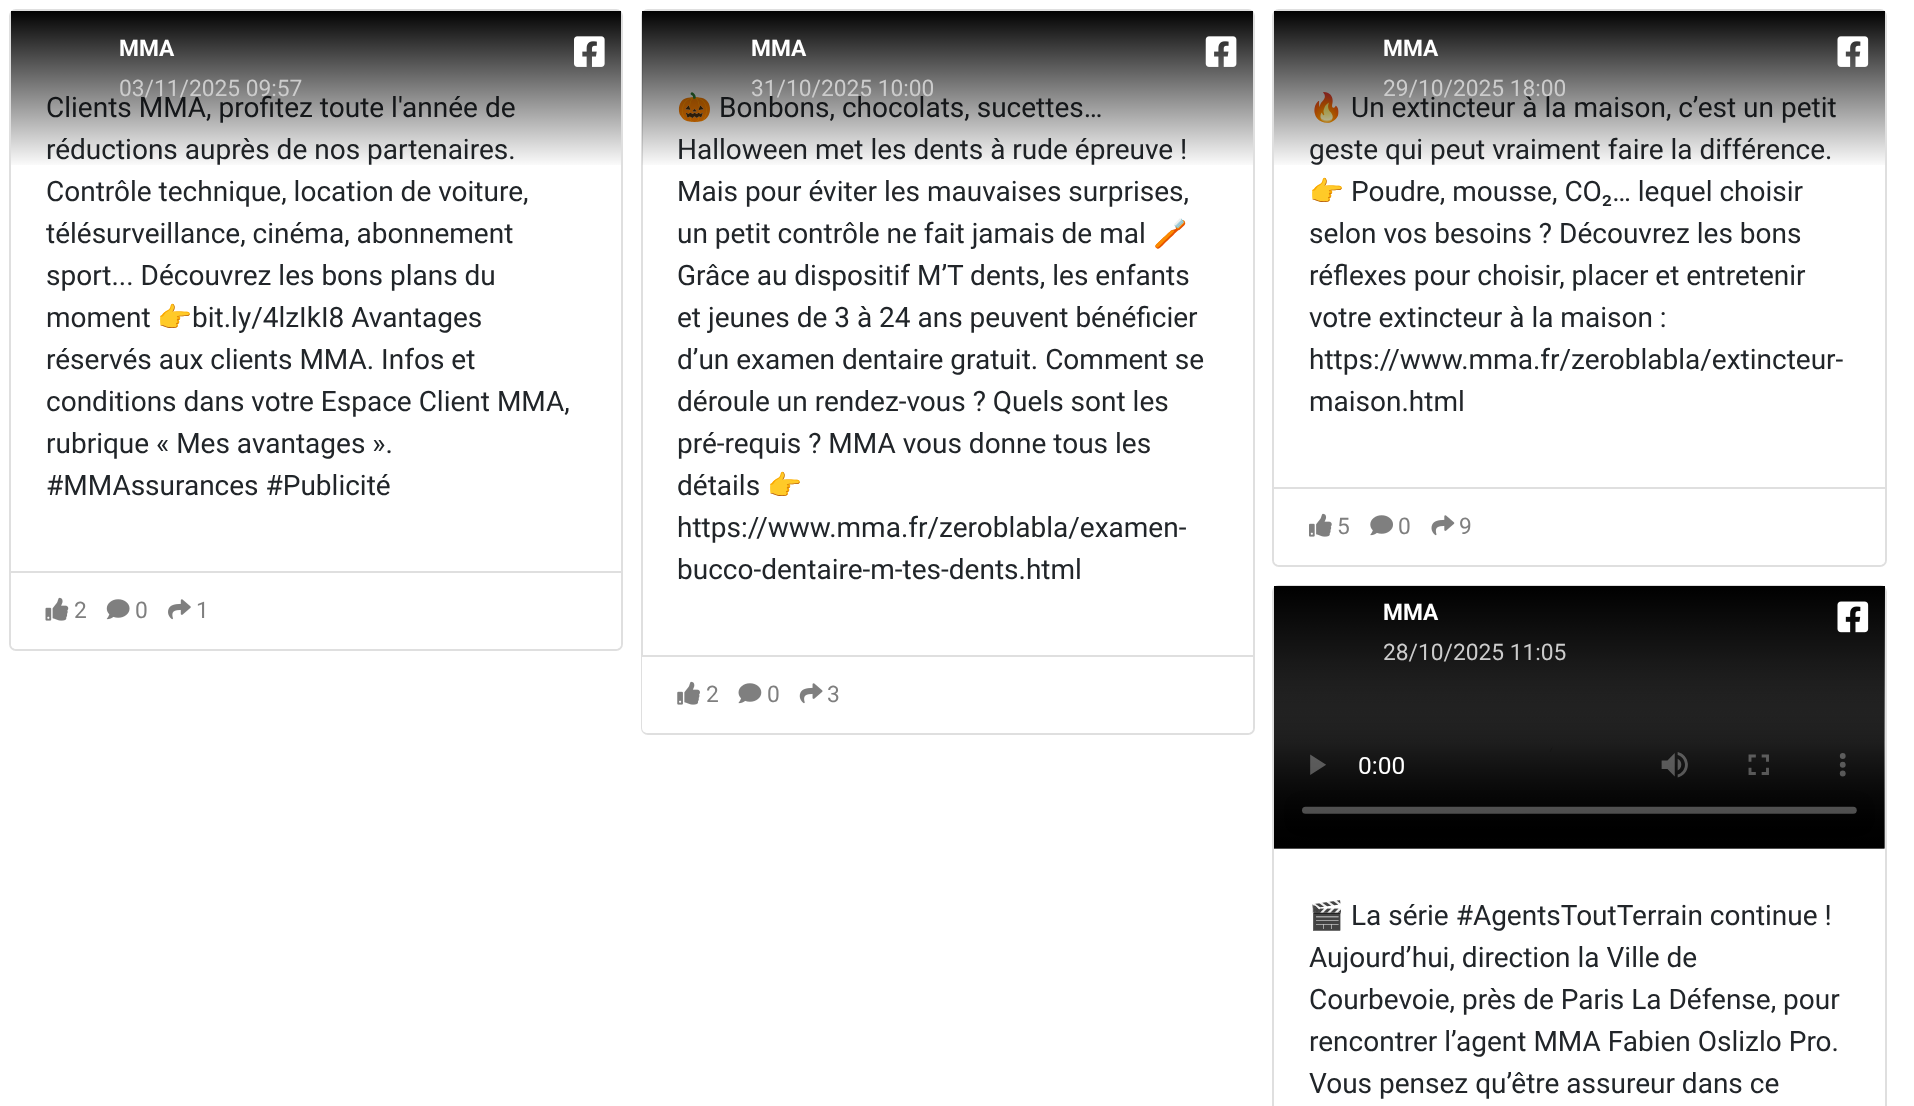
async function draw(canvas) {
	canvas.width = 1914;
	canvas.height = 1106;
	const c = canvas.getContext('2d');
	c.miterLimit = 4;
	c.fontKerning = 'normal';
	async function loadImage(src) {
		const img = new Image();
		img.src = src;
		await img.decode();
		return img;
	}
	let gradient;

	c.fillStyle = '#fff';
	c.fillRect(0, 0, 1914, 1106);
	c.beginPath();
	c.roundRect(10, 10, 612, 640, 6);
	c.strokeStyle = '#dfdfdf';
	c.lineWidth = 2;
	c.stroke();
	c.font = '28px Roboto';
	c.fillStyle = '#212529';
	c.fillText('Clients MMA, profitez toute l\'année de', 46, 117);
	c.fillText('réductions auprès de nos partenaires.', 46, 159);
	gradient = c.createLinearGradient(316, 10, 316, 168);
	gradient.addColorStop(0, '#000');
	gradient.addColorStop(1, '#00000000');
	c.fillStyle = gradient;
	c.fillRect(11, 11, 610, 154);
	c.font = 'bold 22.75px Roboto';
	c.fillStyle = '#fff';
	c.fillText('MMA', 119, 56);
	c.font = '22.75px Roboto';
	c.fillStyle = '#ccc';
	c.fillText('03/11/2025 09:57', 119, 96);
	c.drawImage(await loadImage('img1.png'), 574, 36, 31, 31);
	c.font = '28px Roboto';
	c.fillStyle = '#212529';
	for (const [text, x, y] of [
		['Contrôle technique, location de voiture,', 46, 201],
		['télésurveillance, cinéma, abonnement', 46, 243],
		['sport... Découvrez les bons plans du', 46, 285],
		['moment', 46, 327],
	]) {
		c.fillText(text, x, y);
	}
	c.font = '28px Noto Color Emoji';
	c.fillText('👉', 157, 327);
	c.font = '28px Roboto';
	for (const [text, x, y] of [
		['bit.ly/4lzIkI8 Avantages', 192, 327],
		['réservés aux clients MMA. Infos et', 46, 369],
		['conditions dans votre Espace Client MMA,', 46, 411],
		['rubrique « Mes avantages ».', 46, 453],
		['#MMAssurances #Publicité', 46, 495],
	]) {
		c.fillText(text, x, y);
	}
	c.fillStyle = '#fff';
	c.beginPath();
	c.roundRect(11, 571, 610, 78, [0, 0, 5, 5]);
	c.fill();
	c.fillStyle = '#dfdfdf';
	c.fillRect(11, 571, 610, 2);
	c.drawImage(await loadImage('img2.png'), 45, 597, 24, 24);
	c.font = '22.75px Roboto';
	c.fillStyle = '#7f7f7f';
	c.fillText('2', 74, 618);
	c.drawImage(await loadImage('img3.png'), 106, 599, 24, 21);
	c.fillText('0', 135, 618);
	c.drawImage(await loadImage('img4.png'), 168, 599, 23, 21);
	c.fillText('1', 196, 618);
	c.beginPath();
	c.roundRect(642, 10, 612, 724, 6);
	c.stroke();
	c.font = '28px Noto Color Emoji';
	c.fillStyle = '#212529';
	c.fillText('🎃', 677, 117);
	c.font = '28px Roboto';
	c.fillText('Bonbons, chocolats, sucettes…', 719, 117);
	c.fillText('Halloween met les dents à rude épreuve !', 677, 159);
	gradient = c.createLinearGradient(948, 10, 948, 168);
	gradient.addColorStop(0, '#000');
	gradient.addColorStop(1, '#00000000');
	c.fillStyle = gradient;
	c.fillRect(642, 11, 611, 154);
	c.font = 'bold 22.75px Roboto';
	c.fillStyle = '#fff';
	c.fillText('MMA', 751, 56);
	c.font = '22.75px Roboto';
	c.fillStyle = '#ccc';
	c.fillText('31/10/2025 10:00', 751, 96);
	c.drawImage(await loadImage('img5.png'), 1205, 36, 32, 31);
	c.font = '28px Roboto';
	c.fillStyle = '#212529';
	c.fillText('Mais pour éviter les mauvaises surprises,', 677, 201);
	c.fillText('un petit contrôle ne fait jamais de mal', 677, 243);
	c.font = '28px Noto Color Emoji';
	c.fillText('🪥', 1153, 243);
	c.font = '28px Roboto';
	for (const [text, x, y] of [
		['Grâce au dispositif M’T dents, les enfants', 677, 285],
		['et jeunes de 3 à 24 ans peuvent bénéficier', 677, 327],
		['d’un examen dentaire gratuit. Comment se', 677, 369],
		['déroule un rendez-vous ? Quels sont les', 677, 411],
		['pré-requis ? MMA vous donne tous les', 677, 453],
		['détails', 677, 495],
	]) {
		c.fillText(text, x, y);
	}
	c.font = '28px Noto Color Emoji';
	c.fillText('👉', 767, 495);
	c.font = '28px Roboto';
	c.fillText('https://www.mma.fr/zeroblabla/examen-', 677, 537);
	c.fillText('bucco-dentaire-m-tes-dents.html', 677, 579);
	c.fillStyle = '#fff';
	c.beginPath();
	c.roundRect(642, 655, 611, 78, [0, 0, 5, 5]);
	c.fill();
	c.fillStyle = '#dfdfdf';
	c.fillRect(642, 655, 611, 2);
	c.drawImage(await loadImage('img6.png'), 677, 681, 23, 24);
	c.font = '22.75px Roboto';
	c.fillStyle = '#7f7f7f';
	c.fillText('2', 706, 702);
	c.drawImage(await loadImage('img7.png'), 738, 683, 24, 21);
	c.fillText('0', 767, 702);
	c.drawImage(await loadImage('img8.png'), 799, 683, 24, 21);
	c.fillText('3', 827, 702);
	c.beginPath();
	c.roundRect(1273, 10, 613, 556, 6);
	c.stroke();
	c.font = '28px Noto Color Emoji';
	c.fillStyle = '#212529';
	c.fillText('🔥', 1309, 117);
	c.font = '28px Roboto';
	c.fillText('Un extincteur à la maison, c’est un petit', 1351, 117);
	c.fillText('geste qui peut vraiment faire la différence.', 1309, 159);
	gradient = c.createLinearGradient(1579, 10, 1579, 168);
	gradient.addColorStop(0, '#000');
	gradient.addColorStop(1, '#00000000');
	c.fillStyle = gradient;
	c.fillRect(1274, 11, 611, 154);
	c.font = 'bold 22.75px Roboto';
	c.fillStyle = '#fff';
	c.fillText('MMA', 1383, 56);
	c.font = '22.75px Roboto';
	c.fillStyle = '#ccc';
	c.fillText('29/10/2025 18:00', 1383, 96);
	c.drawImage(await loadImage('img9.png'), 1837, 36, 32, 31);
	c.font = '28px Noto Color Emoji';
	c.fillStyle = '#212529';
	c.fillText('👉', 1309, 201);
	c.font = '28px Roboto';
	for (const [text, x, y] of [
		['Poudre, mousse, CO₂… lequel choisir', 1351, 201],
		['selon vos besoins ? Découvrez les bons', 1309, 243],
		['réflexes pour choisir, placer et entretenir', 1309, 285],
		['votre extincteur à la maison :', 1309, 327],
		['https://www.mma.fr/zeroblabla/extincteur-', 1309, 369],
		['maison.html', 1309, 411],
	]) {
		c.fillText(text, x, y);
	}
	c.fillStyle = '#fff';
	c.beginPath();
	c.roundRect(1274, 487, 611, 78, [0, 0, 5, 5]);
	c.fill();
	c.fillStyle = '#dfdfdf';
	c.fillRect(1274, 487, 611, 2);
	c.drawImage(await loadImage('img10.png'), 1309, 513, 23, 24);
	c.font = '22.75px Roboto';
	c.fillStyle = '#7f7f7f';
	c.fillText('5', 1337, 534);
	c.drawImage(await loadImage('img11.png'), 1370, 515, 23, 21);
	c.fillText('0', 1398, 534);
	c.drawImage(await loadImage('img12.png'), 1431, 515, 24, 21);
	c.fillText('9', 1459, 534);
	c.beginPath();
	c.roundRect(1273, 586, 613, 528, 6);
	c.stroke();
	c.drawImage(await loadImage('img13.png'), 1274, 587, 611, 262);
	gradient = c.createLinearGradient(1579, 586, 1579, 744);
	gradient.addColorStop(0, '#000');
	gradient.addColorStop(1, '#00000000');
	c.fillStyle = gradient;
	c.fillRect(1274, 586, 611, 155);
	c.font = 'bold 22.75px Roboto';
	c.fillStyle = '#fff';
	c.fillText('MMA', 1383, 620);
	c.font = '22.75px Roboto';
	c.fillStyle = '#ccc';
	c.fillText('28/10/2025 11:05', 1383, 660);
	c.drawImage(await loadImage('img14.png'), 1837, 601, 32, 32);
	c.font = '28px Noto Color Emoji';
	c.fillStyle = '#212529';
	c.fillText('🎬', 1309, 925);
	c.font = '28px Roboto';
	for (const [text, x, y] of [
		['La série #AgentsToutTerrain continue !', 1351, 925],
		['Aujourd’hui, direction la Ville de', 1309, 967],
		['Courbevoie, près de Paris La Défense, pour', 1309, 1009],
		['rencontrer l’agent MMA Fabien Oslizlo Pro.', 1309, 1051],
		['Vous pensez qu’être assureur dans ce', 1309, 1093],
	]) {
		c.fillText(text, x, y);
	}
}

draw(document.querySelector('canvas'));
